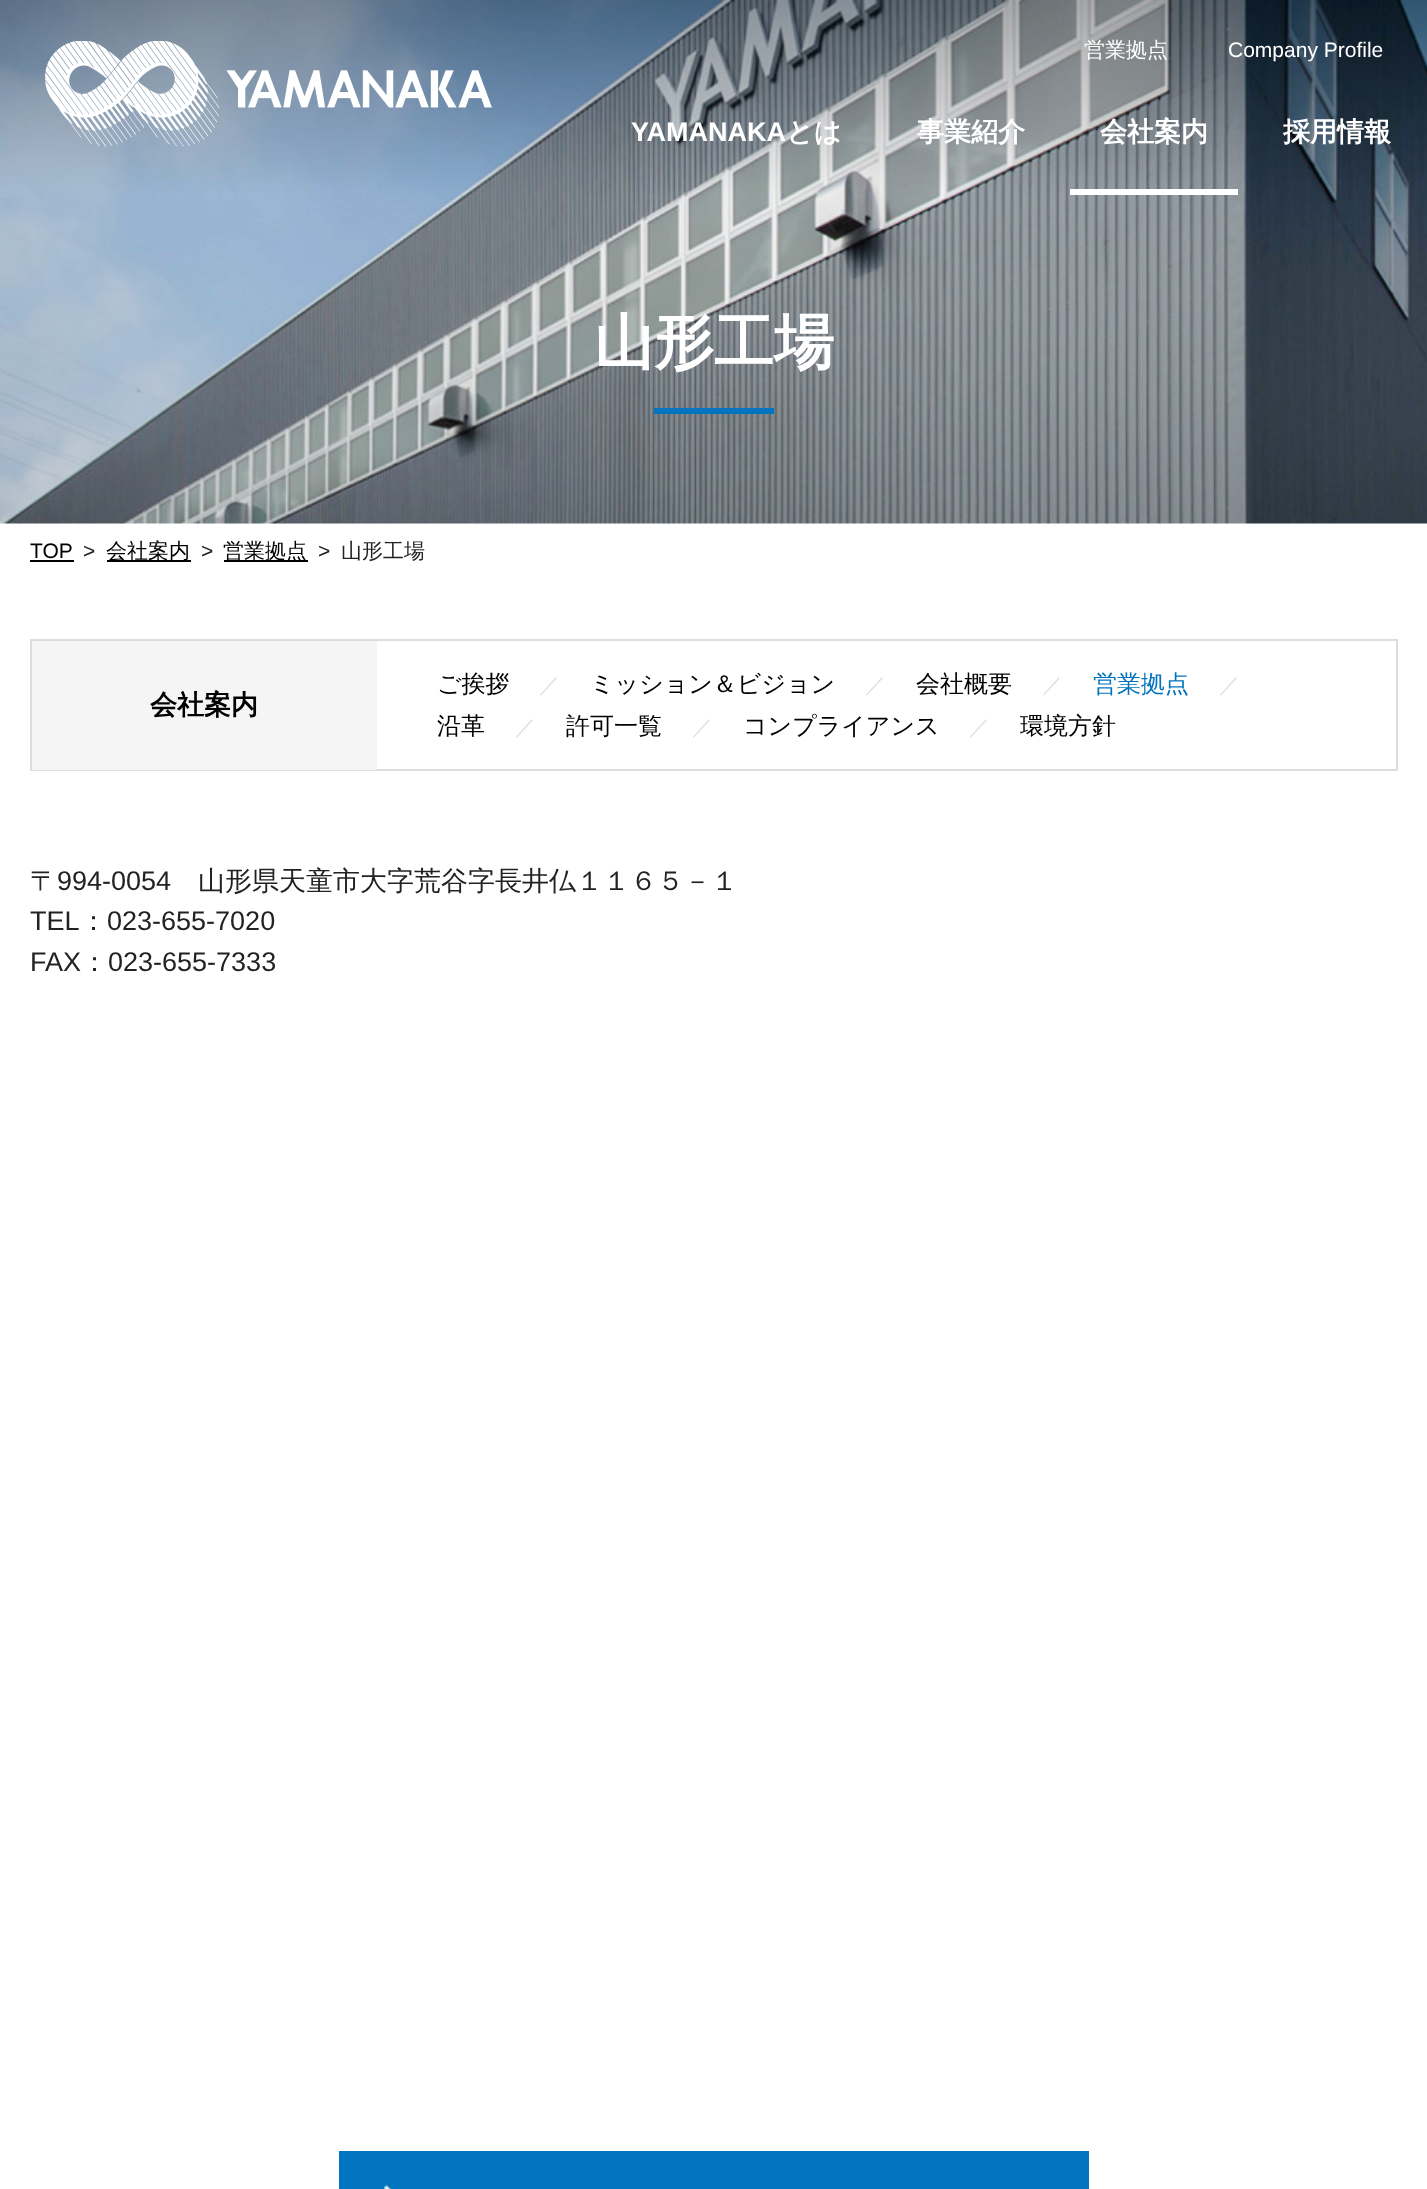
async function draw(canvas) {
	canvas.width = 1427;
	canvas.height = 2189;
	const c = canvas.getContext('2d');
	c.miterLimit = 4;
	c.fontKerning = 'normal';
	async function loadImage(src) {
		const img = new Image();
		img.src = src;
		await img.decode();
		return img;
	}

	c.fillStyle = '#fff';
	c.fillRect(0, 0, 1427, 2189);
	c.drawImage(await loadImage('img2.png'), 0, 0, 1427, 524);
	c.drawImage(await loadImage('img1.png'), 45, 41, 447, 106);
	c.font = '500 21px WenQuanYi Zen Hei';
	c.fillText('営業拠点', 1084, 57);
	c.font = '21px Liberation Sans';
	c.fillText('Company Profile', 1228, 57);
	c.font = 'bold 27px Liberation Sans';
	c.fillText('YAMANAKA', 631, 141);
	c.font = 'bold 27px WenQuanYi Zen Hei';
	c.fillText('とは', 786, 141);
	c.fillText('事業紹介', 917, 141);
	c.fillRect(1070, 189, 168, 6);
	c.fillText('会社案内', 1100, 141);
	c.fillText('採用情報', 1283, 141);
	c.font = 'bold 60px WenQuanYi Zen Hei';
	c.fillText('山形工場', 594, 363);
	c.fillStyle = '#0074be';
	c.fillRect(654, 408, 120, 6);
	c.font = '21px Liberation Sans';
	c.fillStyle = '#000';
	c.fillText('TOP', 30, 558);
	c.fillRect(30, 560, 44, 2);
	c.fillStyle = '#222';
	c.fillText('>', 83, 558);
	c.fillStyle = '#000';
	c.fillRect(107, 560, 84, 2);
	c.font = '500 21px WenQuanYi Zen Hei';
	c.fillText('会社案内', 106, 558);
	c.font = '21px Liberation Sans';
	c.fillStyle = '#222';
	c.fillText('>', 201, 558);
	c.fillStyle = '#000';
	c.fillRect(224, 560, 84, 2);
	c.font = '500 21px WenQuanYi Zen Hei';
	c.fillText('営業拠点', 223, 558);
	c.font = '21px Liberation Sans';
	c.fillStyle = '#222';
	c.fillText('>', 318, 558);
	c.font = '500 21px WenQuanYi Zen Hei';
	c.fillText('山形工場', 341, 558);
	c.strokeStyle = '#ddd';
	c.lineWidth = 2;
	c.strokeRect(31, 640, 1366, 130);
	c.fillStyle = '#f5f5f5';
	c.fillRect(32, 641, 345, 129);
	c.font = 'bold 27px WenQuanYi Zen Hei';
	c.fillStyle = '#000';
	c.fillText('会社案内', 150, 714);
	c.font = '500 24px WenQuanYi Zen Hei';
	c.fillText('ご挨拶', 437, 692);
	c.font = '500 21px WenQuanYi Zen Hei';
	c.fillStyle = '#ddd';
	c.fillText('／', 539, 692);
	c.font = '500 24px WenQuanYi Zen Hei';
	c.fillStyle = '#000';
	c.fillText('ミッション＆ビジョン', 590, 692);
	c.font = '500 21px WenQuanYi Zen Hei';
	c.fillStyle = '#ddd';
	c.fillText('／', 865, 692);
	c.font = '500 24px WenQuanYi Zen Hei';
	c.fillStyle = '#000';
	c.fillText('会社概要', 916, 692);
	c.font = '500 21px WenQuanYi Zen Hei';
	c.fillStyle = '#ddd';
	c.fillText('／', 1042, 692);
	c.font = '500 24px WenQuanYi Zen Hei';
	c.fillStyle = '#0074be';
	c.fillText('営業拠点', 1093, 692);
	c.font = '500 21px WenQuanYi Zen Hei';
	c.fillStyle = '#ddd';
	c.fillText('／', 1219, 692);
	c.font = '500 24px WenQuanYi Zen Hei';
	c.fillStyle = '#000';
	c.fillText('沿革', 437, 734);
	c.font = '500 21px WenQuanYi Zen Hei';
	c.fillStyle = '#ddd';
	c.fillText('／', 515, 734);
	c.font = '500 24px WenQuanYi Zen Hei';
	c.fillStyle = '#000';
	c.fillText('許可一覧', 566, 734);
	c.font = '500 21px WenQuanYi Zen Hei';
	c.fillStyle = '#ddd';
	c.fillText('／', 692, 734);
	c.font = '500 24px WenQuanYi Zen Hei';
	c.fillStyle = '#000';
	c.fillText('コンプライアンス', 743, 734);
	c.font = '500 21px WenQuanYi Zen Hei';
	c.fillStyle = '#ddd';
	c.fillText('／', 969, 734);
	c.font = '500 24px WenQuanYi Zen Hei';
	c.fillStyle = '#000';
	c.fillText('環境方針', 1020, 734);
	c.font = '500 27px WenQuanYi Zen Hei';
	c.fillStyle = '#222';
	c.fillText('〒', 30, 890);
	c.font = '27px Liberation Sans';
	c.fillText('994-0054', 57, 890);
	c.font = '500 27px WenQuanYi Zen Hei';
	c.fillText('山形県天童市大字荒谷字長井仏１１６５－１', 198, 890);
	c.font = '27px Liberation Sans';
	c.fillText('TEL', 30, 930);
	c.font = '500 27px WenQuanYi Zen Hei';
	c.fillText('：', 80, 930);
	c.font = '27px Liberation Sans';
	c.fillText('023-655-7020', 107, 930);
	c.fillText('FAX', 30, 971);
	c.font = '500 27px WenQuanYi Zen Hei';
	c.fillText('：', 81, 971);
	c.font = '27px Liberation Sans';
	c.fillText('023-655-7333', 108, 971);
	c.fillStyle = '#0074be';
	c.fillRect(339, 2151, 750, 38);
	c.drawImage(await loadImage('img3.png'), 384, 2185, 8, 4);
}

draw(document.querySelector('canvas'));
